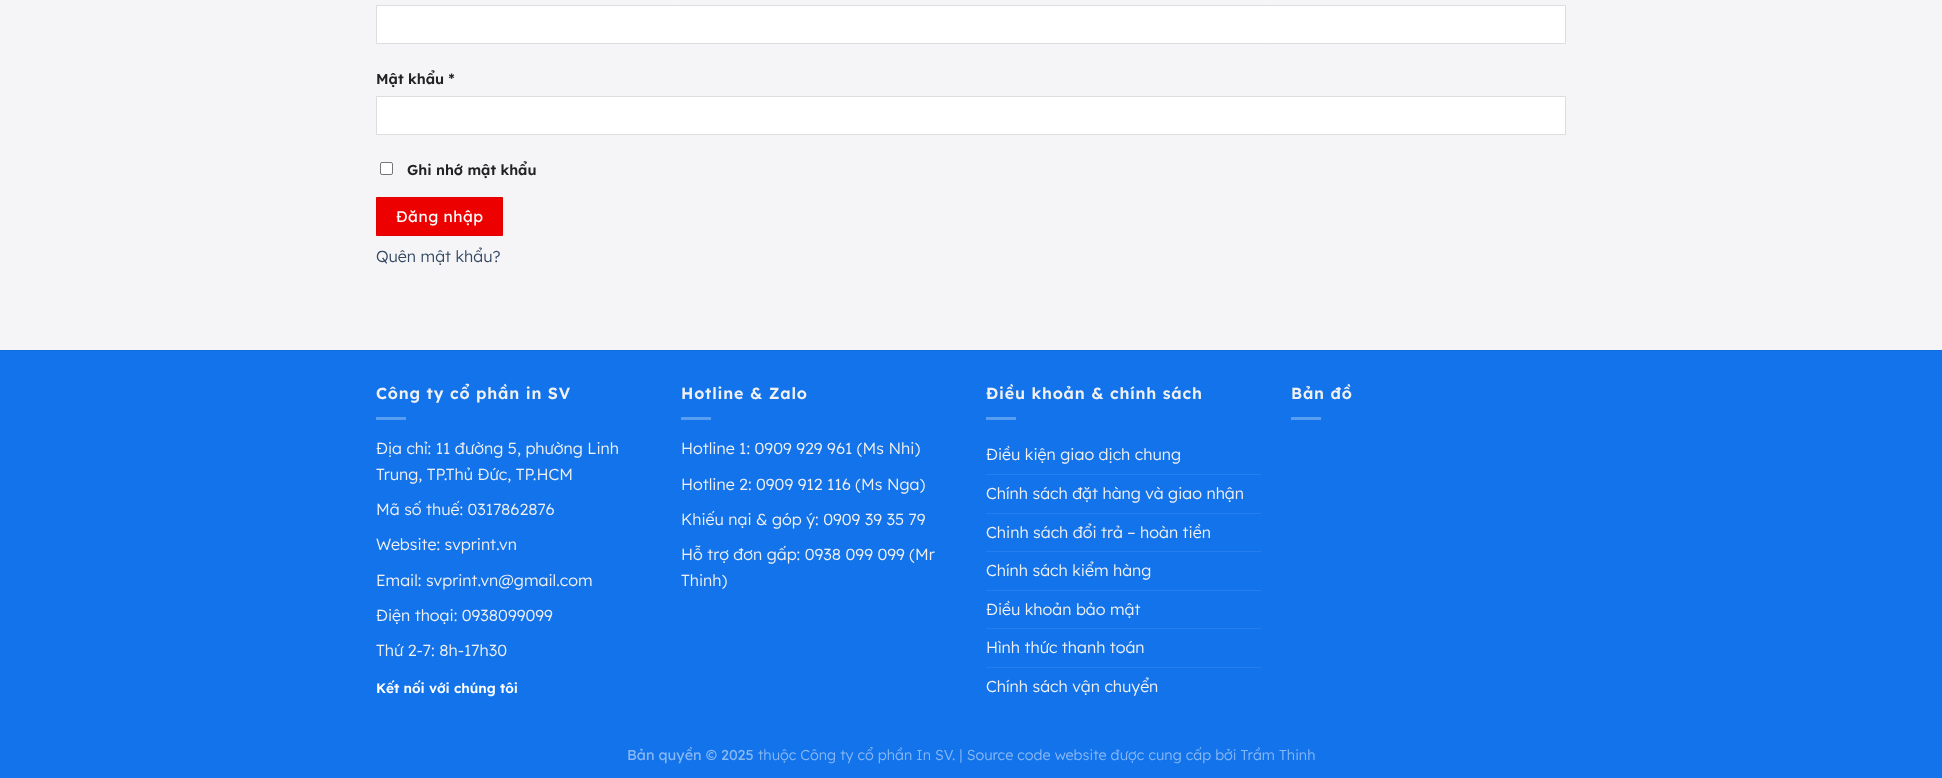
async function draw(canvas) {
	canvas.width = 1942;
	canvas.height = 778;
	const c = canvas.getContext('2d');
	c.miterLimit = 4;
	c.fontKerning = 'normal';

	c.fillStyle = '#f5f5f7';
	c.fillRect(0, 0, 1942, 778);
	c.fillStyle = '#fff';
	c.beginPath();
	c.rect(376.5, 5.5, 1189, 38);
	c.fill();
	c.strokeStyle = '#ddd';
	c.stroke();
	c.font = '600 14.4px Lexend';
	c.fillStyle = '#222';
	c.fillText('Mật khẩu *', 376, 84);
	c.fillStyle = '#fff';
	c.beginPath();
	c.rect(376.5, 96.5, 1189, 38);
	c.fill();
	c.stroke();
	c.beginPath();
	c.roundRect(380.5, 162.5, 12, 12, 1.5);
	c.fill();
	c.strokeStyle = '#767676';
	c.stroke();
	c.fillStyle = '#222';
	c.fillText('Ghi nhớ mật khẩu', 407, 175);
	c.fillStyle = '#ed0000';
	c.beginPath();
	c.rect(376.5, 197.5, 126, 38);
	c.fill();
	c.strokeStyle = '#e10000';
	c.stroke();
	c.letterSpacing = '0.5px';
	c.font = '15.5px Lexend';
	c.fillStyle = '#fff';
	c.fillText('Đăng nhập', 396, 222);
	c.letterSpacing = '0px';
	c.font = '300 16px Lexend';
	c.fillStyle = '#334862';
	c.fillText('Quên mật khẩu?', 376, 262);
	c.fillStyle = '#1273eb';
	c.fillRect(0, 351, 1942, 427);
	c.fillStyle = '#116ddf';
	c.fillRect(0, 350, 1942, 1);
	c.letterSpacing = '0.8px';
	c.font = '600 16px Lexend';
	c.fillStyle = '#f1f1f1';
	c.fillText('Công ty cổ phần in SV', 376, 399);
	c.fillStyle = '#599df1';
	c.fillRect(376, 417, 30, 3);
	c.letterSpacing = '0px';
	c.font = '300 16px Lexend';
	c.fillStyle = '#f1f1f1';
	for (const [text, x, y] of [
		['Địa chỉ: 11 đường 5, phường Linh', 376, 454],
		['Trung, TP.Thủ Đức, TP.HCM', 376, 480],
		['Mã số thuế: 0317862876', 376, 515],
		['Website: svprint.vn', 376, 550],
		['Email: svprint.vn@gmail.com', 376, 586],
		['Điện thoại: 0938099099', 376, 621],
		['Thứ 2-7: 8h-17h30', 376, 656],
	]) {
		c.fillText(text, x, y);
	}
	c.font = '600 13.6px Lexend';
	c.fillStyle = '#fff';
	c.fillText('Kết nối với chúng tôi', 376, 693);
	c.letterSpacing = '0.8px';
	c.font = '600 16px Lexend';
	c.fillStyle = '#f1f1f1';
	c.fillText('Hotline & Zalo', 681, 399);
	c.fillStyle = '#599df1';
	c.fillRect(681, 417, 30, 3);
	c.letterSpacing = '0px';
	c.font = '300 16px Lexend';
	c.fillStyle = '#f1f1f1';
	for (const [text, x, y] of [
		['Hotline 1: 0909 929 961 (Ms Nhi)', 681, 454],
		['Hotline 2: 0909 912 116 (Ms Nga)', 681, 490],
		['Khiếu nại & góp ý: 0909 39 35 79', 681, 525],
		['Hỗ trợ đơn gấp: 0938 099 099 (Mr', 681, 560],
		['Thinh)', 681, 586],
	]) {
		c.fillText(text, x, y);
	}
	c.letterSpacing = '0.8px';
	c.font = '600 16px Lexend';
	c.fillText('Điều khoản & chính sách', 986, 399);
	c.fillStyle = '#599df1';
	c.fillRect(986, 417, 30, 3);
	c.letterSpacing = '0px';
	c.font = '300 16px Lexend';
	c.fillStyle = '#f1f1f1';
	c.fillText('Điều kiện giao dịch chung', 986, 460);
	c.fillStyle = '#257eed';
	c.fillRect(986, 474, 275, 1);
	c.fillStyle = '#f1f1f1';
	c.fillText('Chính sách đặt hàng và giao nhận', 986, 499);
	c.fillStyle = '#257eed';
	c.fillRect(986, 513, 275, 1);
	c.fillStyle = '#f1f1f1';
	c.fillText('Chinh sách đổi trả – hoàn tiền', 986, 538);
	c.fillStyle = '#257eed';
	c.fillRect(986, 551, 275, 1);
	c.fillStyle = '#f1f1f1';
	c.fillText('Chính sách kiểm hàng', 986, 576);
	c.fillStyle = '#257eed';
	c.fillRect(986, 590, 275, 1);
	c.fillStyle = '#f1f1f1';
	c.fillText('Điều khoản bảo mật', 986, 615);
	c.fillStyle = '#257eed';
	c.fillRect(986, 628, 275, 1);
	c.fillStyle = '#f1f1f1';
	c.fillText('Hình thức thanh toán', 986, 653);
	c.fillStyle = '#257eed';
	c.fillRect(986, 667, 275, 1);
	c.fillStyle = '#f1f1f1';
	c.fillText('Chính sách vận chuyển', 986, 692);
	c.letterSpacing = '0.8px';
	c.font = '600 16px Lexend';
	c.fillText('Bản đồ', 1291, 399);
	c.fillStyle = '#599df1';
	c.fillRect(1291, 417, 30, 3);
	c.letterSpacing = '0px';
	c.font = '14.4px Lexend';
	c.fillStyle = '#89b9f5';
	c.fillText('Bản quyền © 2025', 627, 760);
	c.font = '300 14.4px Lexend';
	c.fillText('thuộc Công ty cổ phần In SV. | Source code website được cung cấp bởi Trầm Thinh', 758, 760);
}

draw(document.querySelector('canvas'));
